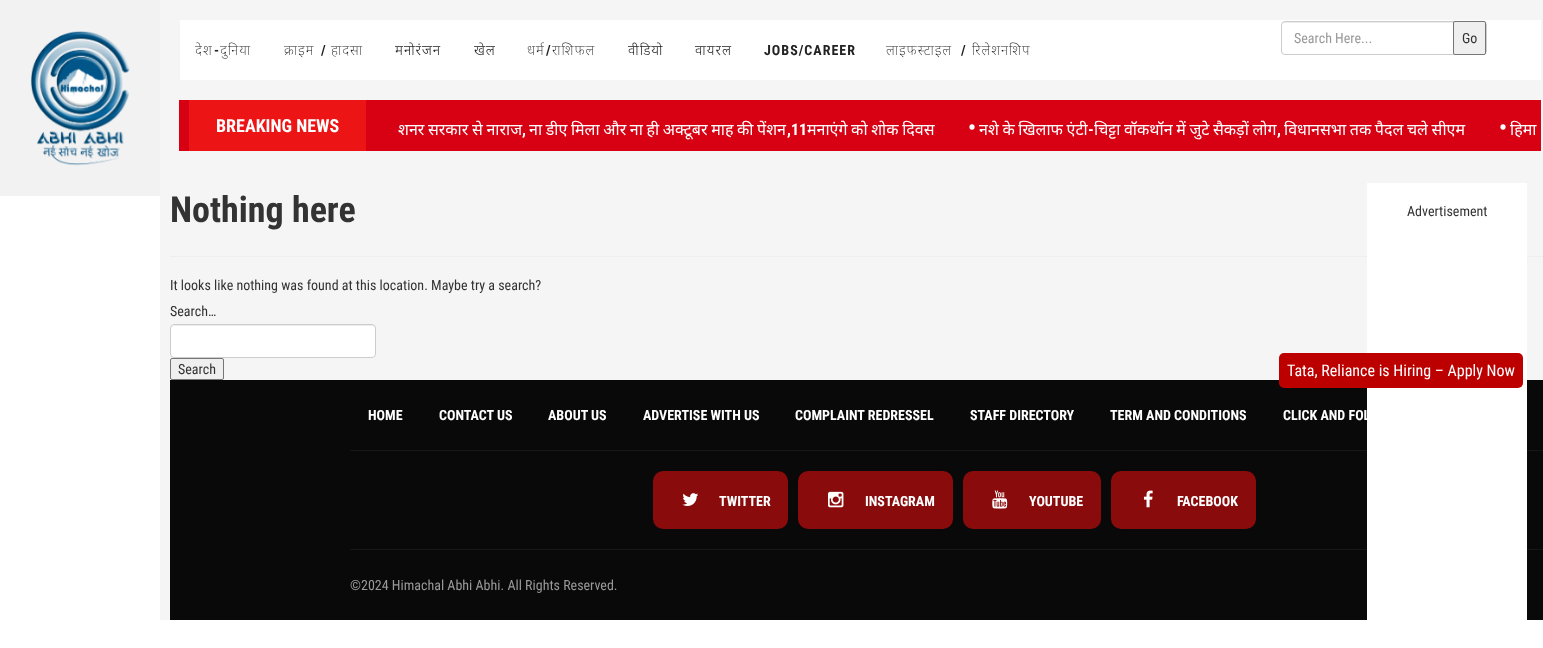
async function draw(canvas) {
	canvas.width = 1543;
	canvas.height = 648;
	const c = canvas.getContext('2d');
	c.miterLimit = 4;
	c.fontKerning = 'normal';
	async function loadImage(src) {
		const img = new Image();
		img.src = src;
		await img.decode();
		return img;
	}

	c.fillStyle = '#fff';
	c.fillRect(0, 0, 1543, 648);
	c.fillStyle = '#f5f5f5';
	c.fillRect(160, 0, 1383, 620);
	c.fillStyle = '#f2f2f2';
	c.fillRect(0, 0, 160, 196);
	c.drawImage(await loadImage('img1.png'), 30, 31, 100, 135);
	c.fillStyle = '#fff';
	c.fillRect(180, 20, 1361, 60);
	c.fillStyle = '#ececec';
	c.beginPath();
	c.moveTo(1285, 23);
	c.lineTo(1483, 23);
	c.bezierCurveTo(1485, 23, 1486, 24, 1486, 26);
	c.bezierCurveTo(1486, 24, 1485, 22, 1483, 22);
	c.lineTo(1285, 22);
	c.bezierCurveTo(1283, 22, 1282, 24, 1282, 26);
	c.bezierCurveTo(1282, 24, 1283, 23, 1285, 23);
	c.closePath();
	c.fill();
	c.beginPath();
	c.roundRect(1281.5, 21.5, 205, 33, 3.5);
	c.strokeStyle = '#ccc';
	c.stroke();
	c.font = '14px Roboto Condensed';
	c.fillStyle = '#999';
	c.fillText('Search Here...', 1294, 43);
	c.fillStyle = '#efefef';
	c.beginPath();
	c.roundRect(1453.5, 21.5, 32, 33, 1.5);
	c.fill();
	c.strokeStyle = '#767676';
	c.stroke();
	c.fillStyle = '#333';
	c.fillText('Go', 1462, 43);
	c.letterSpacing = '1px';
	c.font = '200 14px Noto Sans';
	c.fillStyle = '#222';
	c.fillText('देश', 195, 55);
	c.font = 'bold 14px Roboto Condensed';
	c.fillText('-', 214, 55);
	c.font = '200 14px Noto Sans';
	c.fillText('दुनिया', 220, 55);
	c.fillText('क्राइम', 284, 55);
	c.font = 'bold 14px Roboto Condensed';
	c.fillText('/', 321, 55);
	c.font = '200 14px Noto Sans';
	c.fillText('हादसा', 331, 55);
	c.font = '300 14px Noto Sans';
	c.fillText('मनोरंजन', 395, 55);
	c.fillText('खेल', 474, 55);
	c.font = '200 14px Noto Sans';
	c.fillText('धर्म', 527, 55);
	c.font = 'bold 14px Roboto Condensed';
	c.fillText('/', 546, 55);
	c.font = '200 14px Noto Sans';
	c.fillText('राशिफल', 552, 55);
	c.font = '300 14px Noto Sans';
	c.fillText('वीडियो', 628, 55);
	c.fillText('वायरल', 695, 55);
	c.font = 'bold 14px Roboto Condensed';
	c.fillText('JOBS/CAREER', 764, 55);
	c.font = '200 14px Noto Sans';
	c.fillText('लाइफस्टाइल', 886, 55);
	c.font = 'bold 14px Roboto Condensed';
	c.fillText('/', 961, 55);
	c.font = '200 14px Noto Sans';
	c.fillText('रिलेशनशिप', 972, 55);
	c.fillStyle = '#d80113';
	c.fillRect(179, 100, 1362, 51);
	c.fillStyle = '#ec1415';
	c.fillRect(189, 100, 177, 51);
	c.letterSpacing = '0px';
	c.font = 'bold 18px Roboto Condensed';
	c.fillStyle = '#fff';
	c.fillText('BREAKING NEWS', 216, 132);
	c.wordSpacing = '-0.5px';
	c.font = '16px Noto Sans';
	c.fillText('शनर सरकार से नाराज', 398, 135);
	c.wordSpacing = '0px';
	c.font = 'bold 16px Roboto Condensed';
	c.fillText(',', 522, 135);
	c.wordSpacing = '-0.5px';
	c.font = '16px Noto Sans';
	c.fillText('ना डीए मिला और ना ही अक्टूबर माह की पेंशन', 529, 135);
	c.wordSpacing = '0px';
	c.font = 'bold 16px Roboto Condensed';
	c.fillText(',11', 787, 135);
	c.wordSpacing = '-0.5px';
	c.font = '16px Noto Sans';
	c.fillText('मनाएंगे को शोक दिवस', 807, 135);
	c.wordSpacing = '0px';
	c.font = 'bold 22px Roboto Condensed';
	c.fillText('•', 968, 135);
	c.wordSpacing = '-0.5px';
	c.font = '16px Noto Sans';
	for (const [text, x, y] of [
		['नशे के खिलाफ एंटी', 979, 135],
		['चिट्टा वॉकथॉन में जुटे सैकड़ों लोग', 1094, 135],
		['विधानसभा तक पैदल चले सीएम', 1284, 135],
	]) {
		c.fillText(text, x, y);
	}
	c.wordSpacing = '0px';
	c.font = 'bold 16px Roboto Condensed';
	c.fillText('-', 1088, 135);
	c.fillText(',', 1277, 135);
	c.font = 'bold 22px Roboto Condensed';
	c.fillText('•', 1499, 135);
	c.font = '16px Noto Sans';
	c.fillText('हिमा', 1510, 135);
	c.fillStyle = '#eee';
	c.fillRect(170, 256, 1373, 1);
	c.font = 'bold 36px Roboto Condensed';
	c.fillStyle = '#333';
	c.fillText('Nothing here', 170, 222);
	for (const [x, y, w, h, color] of [
		[170, 380, 1373, 240, '#090909'],
		[350, 450, 1193, 1, '#161616'],
		[350, 549, 1193, 1, '#161616'],
		[1367, 183, 160, 437, '#fff'],
	]) {
		c.fillStyle = color;
		c.fillRect(x, y, w, h);
	}
	c.font = '14px Roboto Condensed';
	c.fillStyle = '#333';
	for (const [text, x, y] of [
		['Advertisement', 1407, 216],
		['It looks like nothing was found at this location. Maybe try a search?', 170, 290],
		['Search…', 170, 316],
	]) {
		c.fillText(text, x, y);
	}
	c.fillStyle = '#fff';
	c.beginPath();
	c.roundRect(170, 324, 206, 34, 4);
	c.fill();
	c.fillStyle = '#ececec';
	c.beginPath();
	c.moveTo(174, 326);
	c.lineTo(372, 326);
	c.bezierCurveTo(374, 326, 375, 327, 375, 329);
	c.bezierCurveTo(375, 327, 374, 325, 372, 325);
	c.lineTo(174, 325);
	c.bezierCurveTo(172, 325, 171, 327, 171, 329);
	c.bezierCurveTo(171, 327, 172, 326, 174, 326);
	c.closePath();
	c.fill();
	c.beginPath();
	c.roundRect(170.5, 324.5, 205, 33, 3.5);
	c.strokeStyle = '#ccc';
	c.stroke();
	c.fillStyle = '#efefef';
	c.beginPath();
	c.roundRect(170.5, 358.5, 53, 21, 1.5);
	c.fill();
	c.strokeStyle = '#767676';
	c.stroke();
	c.fillStyle = '#333';
	c.fillText('Search', 178, 374);
	c.fillStyle = '#bc0000';
	c.beginPath();
	c.roundRect(1279, 353, 244, 35, 5);
	c.fill();
	c.font = '16px Roboto Condensed';
	c.fillStyle = '#fff';
	c.fillText('Tata, Reliance is Hiring – Apply Now', 1287, 376);
	c.font = 'bold 14px Roboto Condensed';
	for (const [text, x, y] of [
		['HOME', 368, 420],
		['CONTACT US', 439, 420],
		['ABOUT US', 548, 420],
		['ADVERTISE WITH US', 643, 420],
		['COMPLAINT REDRESSEL', 795, 420],
		['STAFF DIRECTORY', 970, 420],
		['TERM AND CONDITIONS', 1110, 420],
		['CLICK AND FOL', 1283, 420],
	]) {
		c.fillText(text, x, y);
	}
	c.fillStyle = '#890b0b';
	c.beginPath();
	c.roundRect(653, 471, 135, 58, 10);
	c.fill();
	c.drawImage(await loadImage('img2.png'), 682, 493, 17, 13);
	c.fillStyle = '#fff';
	c.fillText('TWITTER', 719, 506);
	c.fillStyle = '#890b0b';
	c.beginPath();
	c.roundRect(798, 471, 155, 58, 10);
	c.fill();
	c.drawImage(await loadImage('img3.png'), 828, 491, 16, 17);
	c.fillStyle = '#fff';
	c.fillText('INSTAGRAM', 865, 506);
	c.fillStyle = '#890b0b';
	c.beginPath();
	c.roundRect(963, 471, 138, 58, 10);
	c.fill();
	c.drawImage(await loadImage('img4.png'), 992, 490, 16, 19);
	c.fillStyle = '#fff';
	c.fillText('YOUTUBE', 1029, 506);
	c.fillStyle = '#890b0b';
	c.beginPath();
	c.roundRect(1111, 471, 145, 58, 10);
	c.fill();
	c.drawImage(await loadImage('img5.png'), 1143, 490, 10, 18);
	c.fillStyle = '#fff';
	c.fillText('FACEBOOK', 1177, 506);
	c.font = '14px Roboto Condensed';
	c.fillStyle = '#999';
	c.fillText('©2024 Himachal Abhi Abhi. All Rights Reserved.', 350, 590);
}

draw(document.querySelector('canvas'));
